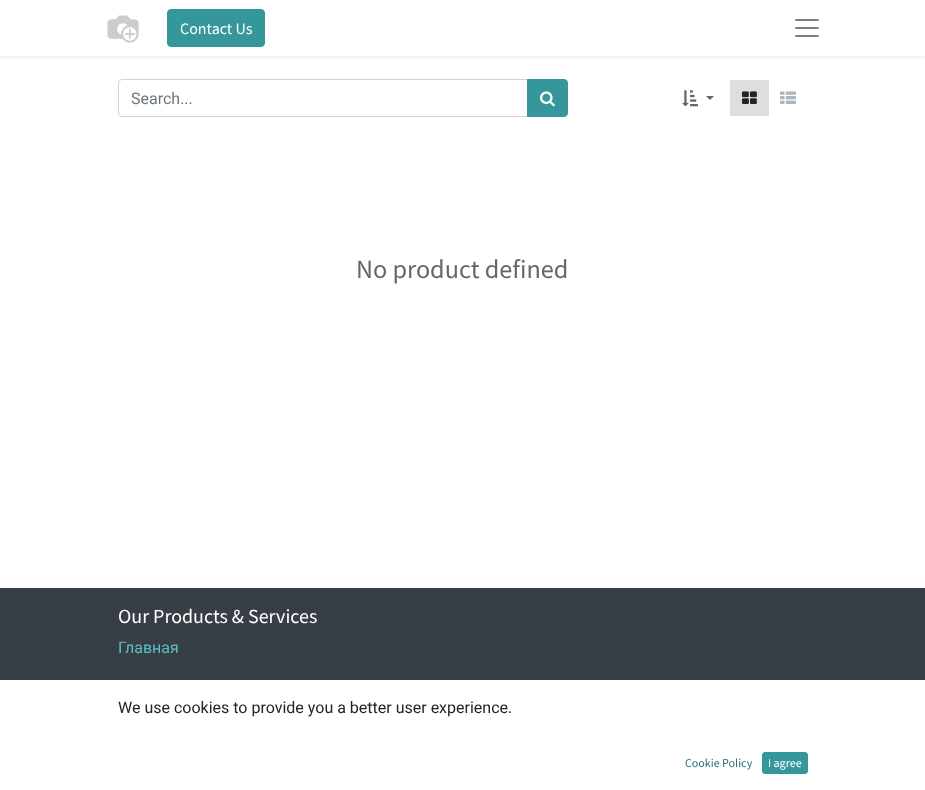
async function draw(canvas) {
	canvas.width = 925;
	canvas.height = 790;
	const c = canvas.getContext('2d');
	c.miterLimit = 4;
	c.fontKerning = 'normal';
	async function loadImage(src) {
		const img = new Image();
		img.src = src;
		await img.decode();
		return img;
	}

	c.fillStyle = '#fff';
	c.fillRect(0, 0, 925, 790);
	c.save();
	c.beginPath();
	c.rect(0, 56, 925, 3);
	c.clip();
	c.fillStyle = '#00000012';
	c.filter = 'blur(2px)';
	c.beginPath();
	c.rect(0, 2, 925, 56);
	c.fill();
	c.filter = 'none';
	c.restore();
	c.drawImage(await loadImage('img1.png'), 107, 15, 32, 28);
	c.fillStyle = '#35979c';
	c.beginPath();
	c.roundRect(167.5, 9.5, 97, 37, 3.5);
	c.fill();
	c.strokeStyle = '#35979c';
	c.stroke();
	c.font = '16px Source Sans Pro';
	c.fillStyle = '#fff';
	c.fillText('Contact Us', 180, 34);
	c.drawImage(await loadImage('img2.png'), 795, 19, 24, 18);
	c.beginPath();
	c.roundRect(118.5, 79.5, 409, 37, [3.5, 0, 0, 3.5]);
	c.strokeStyle = '#ced4da';
	c.stroke();
	c.font = '16px Roboto';
	c.fillStyle = '#6c757d';
	c.fillText('Search...', 131, 104);
	c.fillStyle = '#35979c';
	c.beginPath();
	c.roundRect(527.5, 79.5, 40, 37, [0, 3.5, 3.5, 0]);
	c.fill();
	c.strokeStyle = '#35979c';
	c.stroke();
	c.drawImage(await loadImage('img3.png'), 540, 91, 15, 16);
	c.drawImage(await loadImage('img4.png'), 682, 90, 16, 17);
	c.fillStyle = '#646669';
	c.beginPath();
	c.moveTo(706, 96);
	c.lineTo(714, 96);
	c.lineTo(710, 100);
	c.closePath();
	c.fill();
	c.fillStyle = '#dedede';
	c.fillRect(730, 80, 39, 36);
	c.drawImage(await loadImage('img5.png'), 742, 91, 15, 13);
	c.drawImage(await loadImage('img6.png'), 780, 91, 16, 13);
	c.font = '26.25px Source Sans Pro';
	c.fillStyle = '#646669';
	c.fillText('No product defined', 356, 278);
	c.fillStyle = '#383e45';
	c.fillRect(0, 588, 925, 92);
	c.font = '20px Source Sans Pro';
	c.fillStyle = '#fff';
	c.fillText('Our Products & Services', 118, 623);
	c.font = '16px Roboto';
	c.fillStyle = '#57c1c6';
	c.fillText('Главная', 118, 653);
	c.fillStyle = '#212529';
	c.fillText('We use cookies to provide you a better user experience.', 118, 713);
	c.font = '12px Source Sans Pro';
	c.fillStyle = '#276e72';
	c.fillText('Cookie Policy', 685, 767);
	c.fillStyle = '#35979c';
	c.beginPath();
	c.roundRect(762.5, 752.5, 45, 21, 2.5);
	c.fill();
	c.stroke();
	c.fillStyle = '#fff';
	c.fillText('I agree', 768, 767);
}

draw(document.querySelector('canvas'));
